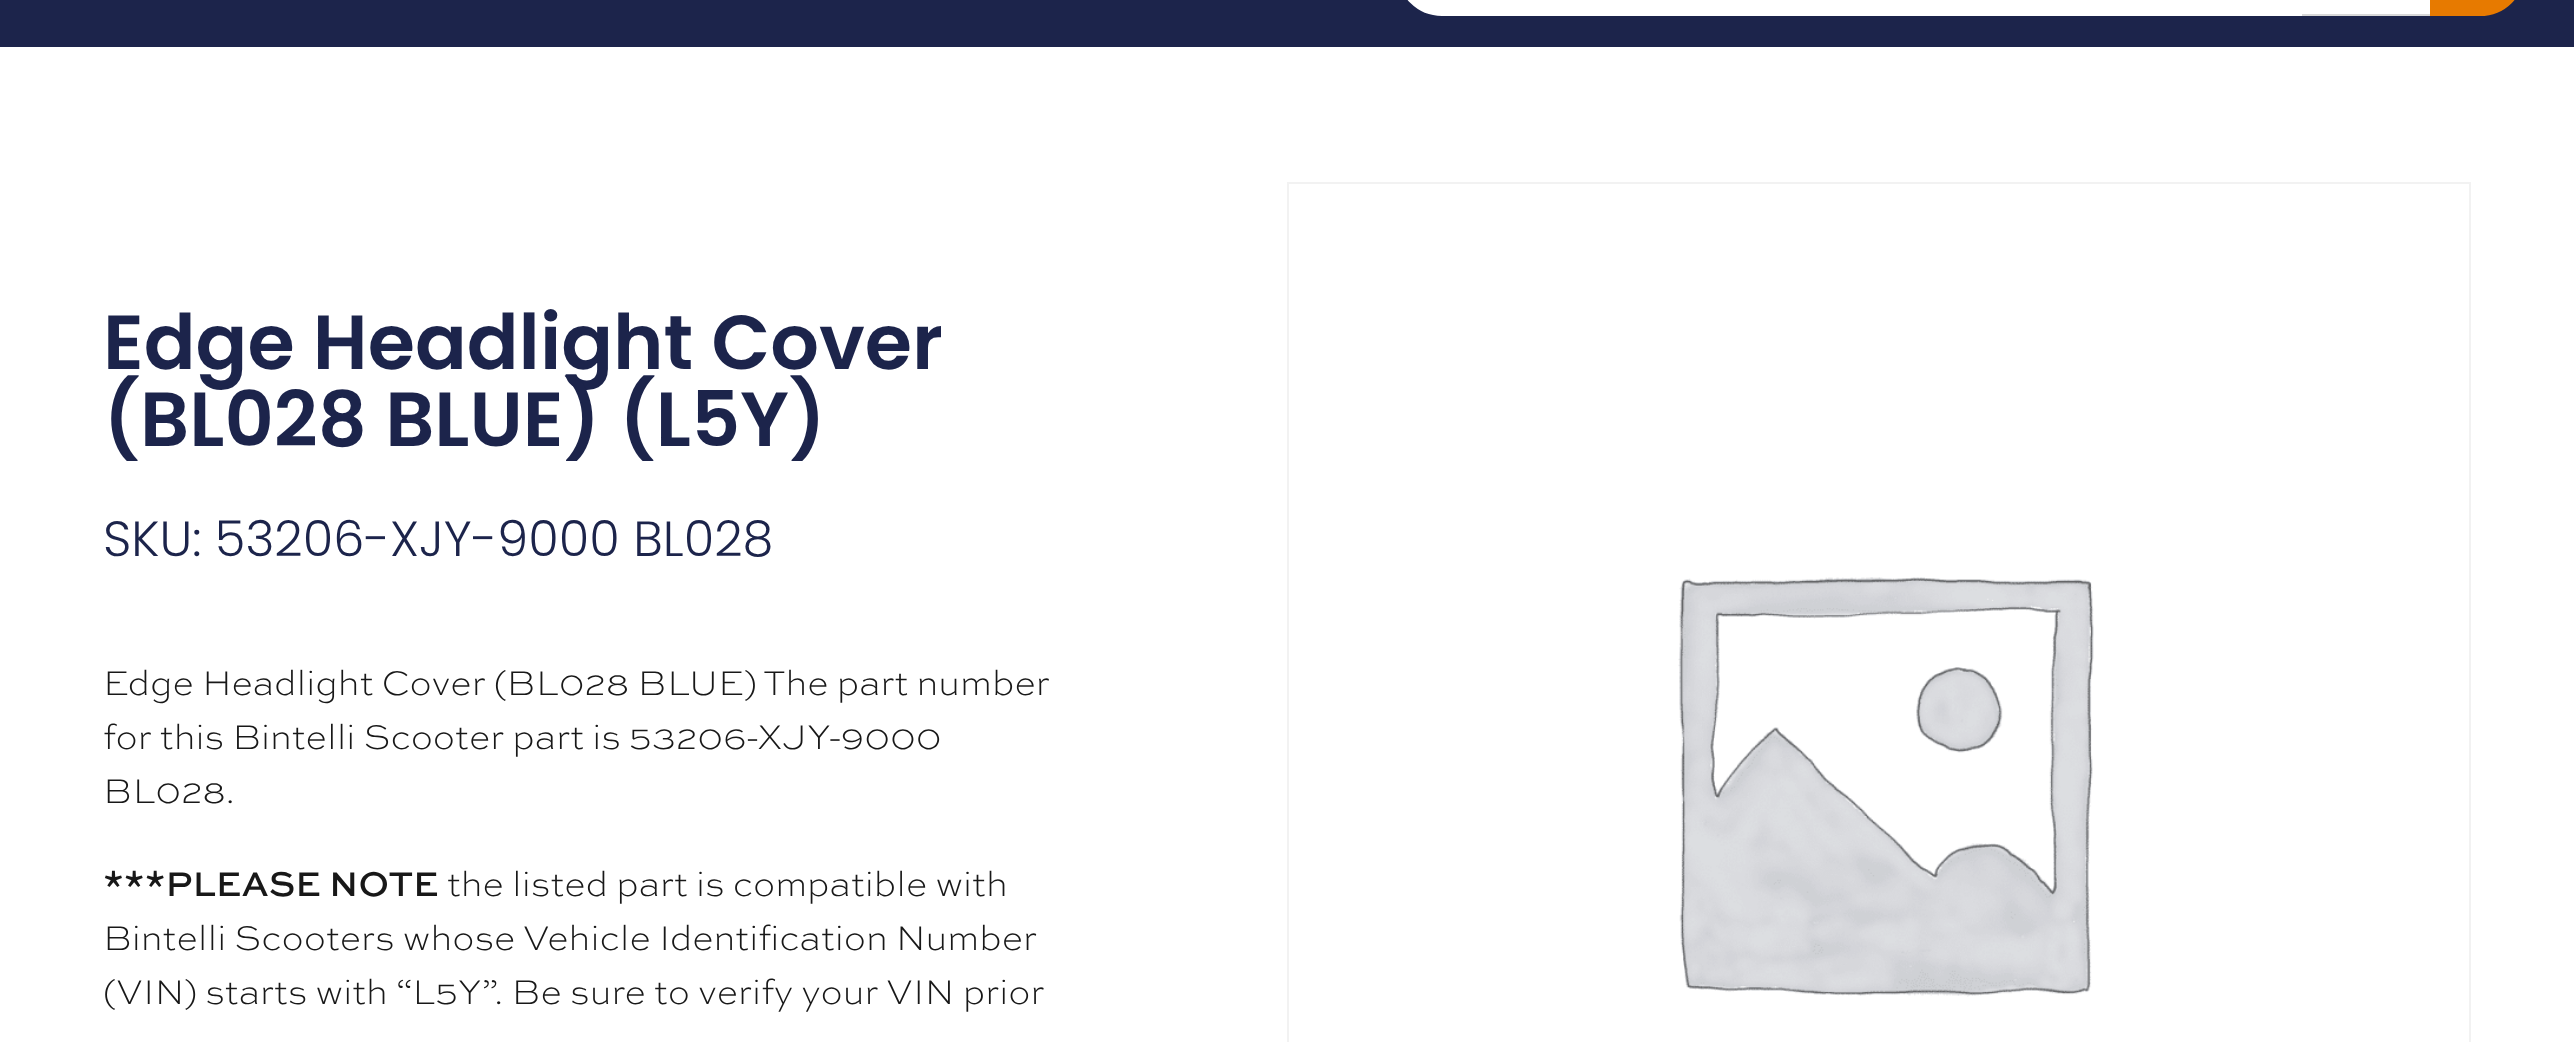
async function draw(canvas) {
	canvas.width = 2574;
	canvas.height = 1042;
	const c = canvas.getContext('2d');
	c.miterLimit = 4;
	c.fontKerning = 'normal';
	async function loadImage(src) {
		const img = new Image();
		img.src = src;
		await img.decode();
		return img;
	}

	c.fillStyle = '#fff';
	c.fillRect(0, 0, 2574, 1042);
	c.fillStyle = '#1c244b';
	c.fillRect(0, 0, 2574, 47);
	c.fillStyle = '#fff';
	c.beginPath();
	c.rect(2301, -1, 130, 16);
	c.fill();
	c.strokeStyle = '#d8d8d8';
	c.lineWidth = 2;
	c.stroke();
	c.beginPath();
	c.moveTo(1442, -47.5);
	c.lineTo(2299.5, -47.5);
	c.lineTo(2299.5, 13.5);
	c.lineTo(1442, 13.5);
	c.bezierCurveTo(1418.5, 13.5, 1399.5, -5.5, 1399.5, -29);
	c.lineTo(1399.5, -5);
	c.bezierCurveTo(1399.5, -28.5, 1418.5, -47.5, 1442, -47.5);
	c.closePath();
	c.fill();
	c.strokeStyle = '#fff';
	c.lineWidth = 5;
	c.stroke();
	c.fillStyle = '#e77a00';
	c.beginPath();
	c.moveTo(2431, -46);
	c.lineTo(2480, -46);
	c.bezierCurveTo(2504.5, -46, 2524, -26.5, 2524, -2);
	c.lineTo(2524, -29);
	c.bezierCurveTo(2524, -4.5, 2504.5, 15, 2480, 15);
	c.lineTo(2431, 15);
	c.closePath();
	c.fill();
	c.strokeStyle = '#e77a00';
	c.lineWidth = 2;
	c.stroke();
	c.font = '600 76.5px Poppins';
	c.fillStyle = '#1c244b';
	c.fillText('Edge Headlight Cover', 103, 369);
	c.fillText('(BL028 BLUE) (L5Y)', 103, 446);
	c.font = '300 49.5px Poppins';
	c.fillText('SKU: 53206-XJY-9000 BL028', 103, 556);
	c.font = '300 36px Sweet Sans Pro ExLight';
	c.fillStyle = '#181818';
	for (const [text, x, y] of [
		['Edge Headlight Cover (BL028 BLUE) The part number', 103, 695],
		['for this Bintelli Scooter part is 53206-XJY-9000', 103, 749],
		['BL028.', 103, 803],
	]) {
		c.fillText(text, x, y);
	}
	c.font = '500 36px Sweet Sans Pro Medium';
	c.fillText('***PLEASE NOTE', 103, 896);
	c.font = '300 36px Sweet Sans Pro ExLight';
	for (const [text, x, y] of [
		['the listed part is compatible with', 447, 896],
		['Bintelli Scooters whose Vehicle Identification Number', 103, 950],
		['(VIN) starts with “L5Y”. Be sure to verify your VIN prior', 103, 1004],
	]) {
		c.fillText(text, x, y);
	}
	c.strokeStyle = '#f2f2f2';
	c.strokeRect(1288, 183, 1182, 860);
	c.drawImage(await loadImage('img1.png'), 1678, 577, 416, 420);
}

draw(document.querySelector('canvas'));
